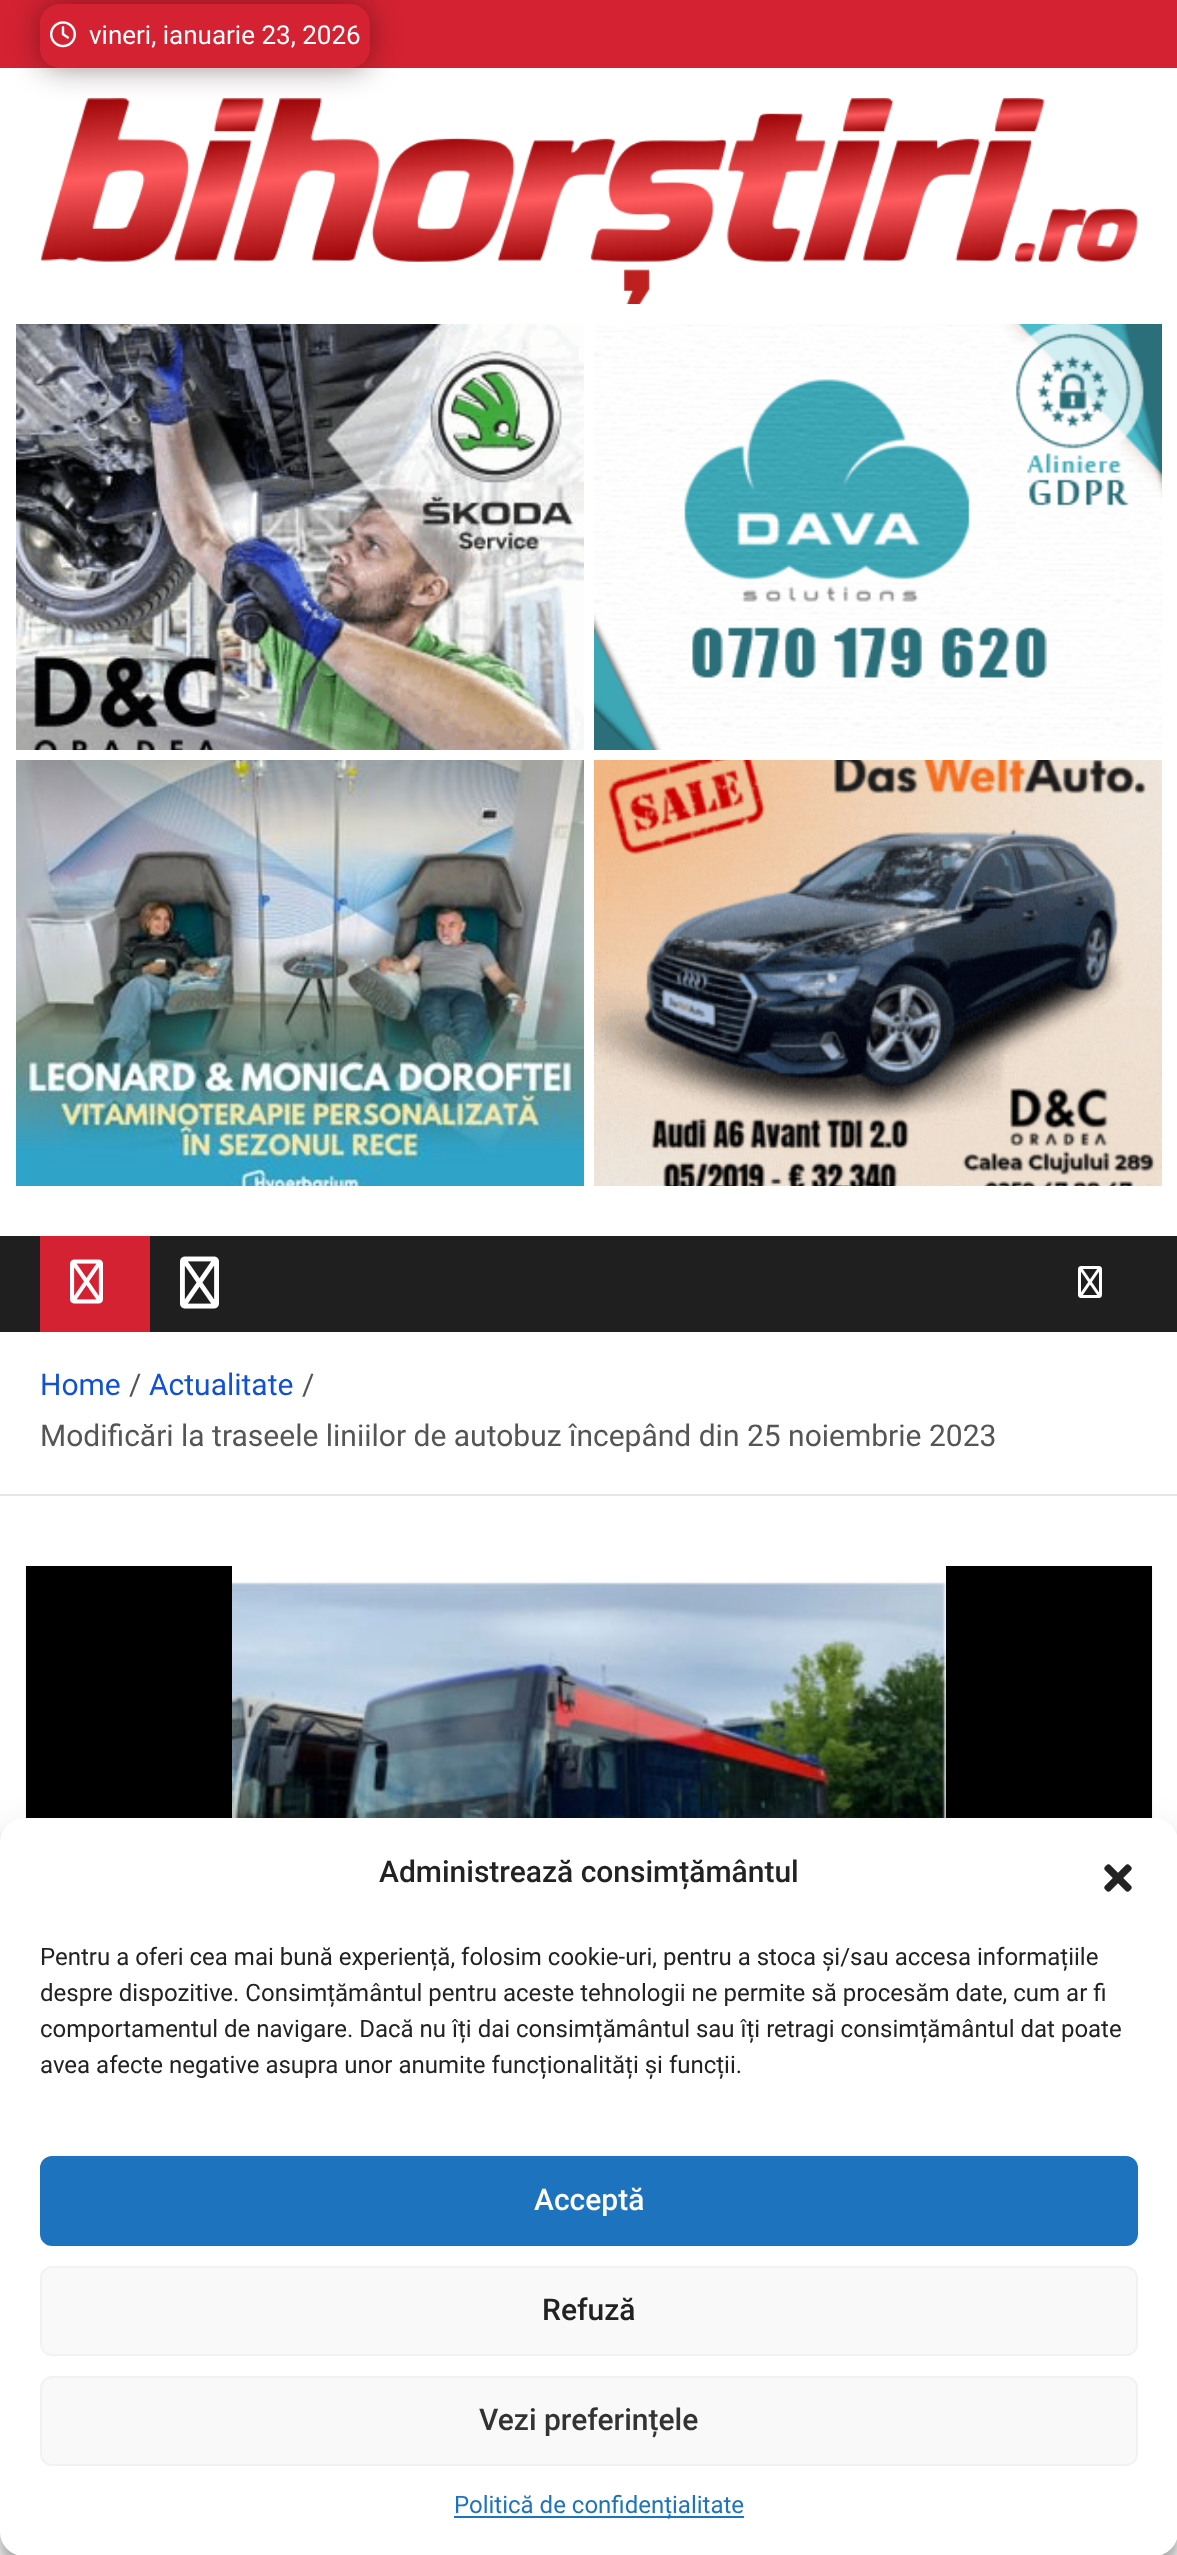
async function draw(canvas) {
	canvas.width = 1177;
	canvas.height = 2555;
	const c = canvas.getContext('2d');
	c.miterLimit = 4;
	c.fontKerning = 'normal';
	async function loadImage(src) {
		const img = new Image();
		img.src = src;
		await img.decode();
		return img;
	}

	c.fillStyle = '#fff';
	c.fillRect(0, 0, 1177, 2555);
	c.fillStyle = '#d42232';
	c.fillRect(0, 0, 1177, 68);
	c.save();
	c.beginPath();
	c.moveTo(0, 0);
	c.lineTo(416, 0);
	c.lineTo(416, 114);
	c.lineTo(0, 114);
	c.closePath();
	c.moveTo(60, 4);
	c.lineTo(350, 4);
	c.bezierCurveTo(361, 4, 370, 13, 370, 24);
	c.lineTo(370, 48);
	c.bezierCurveTo(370, 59, 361, 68, 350, 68);
	c.lineTo(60, 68);
	c.bezierCurveTo(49, 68, 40, 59, 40, 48);
	c.lineTo(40, 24);
	c.bezierCurveTo(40, 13, 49, 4, 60, 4);
	c.closePath();
	c.clip('evenodd');
	c.fillStyle = '#21070773';
	c.filter = 'blur(15px)';
	c.beginPath();
	c.roundRect(40, 4, 330, 64, 20);
	c.fill();
	c.filter = 'none';
	c.restore();
	c.drawImage(await loadImage('img1.png'), 50, 21, 26, 27);
	c.font = '26px Roboto';
	c.fillStyle = '#fff';
	c.fillText('vineri, ianuarie 23, 2026', 89, 44);
	c.drawImage(await loadImage('img2.png'), 40, 98, 1098, 206);
	c.drawImage(await loadImage('img3.png'), 16, 324, 568, 426);
	c.drawImage(await loadImage('img4.png'), 594, 324, 568, 426);
	c.drawImage(await loadImage('img5.png'), 16, 760, 568, 426);
	c.drawImage(await loadImage('img6.png'), 594, 760, 568, 426);
	c.fillStyle = '#1f1f1f';
	c.fillRect(0, 1236, 1177, 96);
	c.fillStyle = '#d42232';
	c.fillRect(40, 1236, 110, 96);
	c.drawImage(await loadImage('img7.png'), 70, 1259, 33, 45);
	c.drawImage(await loadImage('img8.png'), 180, 1256, 39, 53);
	c.drawImage(await loadImage('img9.png'), 1078, 1266, 24, 32);
	c.fillStyle = '#e6e6e6';
	c.fillRect(0, 1494, 1177, 2);
	c.font = '30px Roboto';
	c.fillStyle = '#1151d3';
	c.fillText('Home', 40, 1395);
	c.fillStyle = '#555';
	c.fillText('/', 129, 1395);
	c.fillStyle = '#1151d3';
	c.fillText('Actualitate', 149, 1395);
	c.fillStyle = '#555';
	c.fillText('/', 302, 1395);
	c.fillText('Modificări la traseele liniilor de autobuz începând din 25 noiembrie 2023', 40, 1446);
	c.fillStyle = '#0000001a';
	c.filter = 'blur(1px)';
	c.beginPath();
	c.rect(26, 1568, 1126, 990);
	c.fill();
	c.filter = 'none';
	c.fillStyle = '#000';
	c.fillRect(26, 1566, 1126, 252);
	c.drawImage(await loadImage('img10.png'), 232, 1566, 714, 252);
	c.fillStyle = '#0000003b';
	c.filter = 'blur(6px)';
	c.beginPath();
	c.roundRect(0, 1830, 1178, 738, 24);
	c.fill();
	c.filter = 'none';
	c.fillStyle = '#00000030';
	c.filter = 'blur(20px)';
	c.beginPath();
	c.roundRect(0, 1838, 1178, 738, 24);
	c.fill();
	c.filter = 'none';
	c.fillStyle = '#fff';
	c.beginPath();
	c.roundRect(0, 1818, 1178, 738, 24);
	c.fill();
	c.font = '500 30px Roboto';
	c.fillStyle = '#222';
	c.fillText('Administrează consimțământul', 379, 1882);
	c.drawImage(await loadImage('img11.png'), 1104, 1864, 28, 28);
	c.font = '24px Roboto';
	for (const [text, x, y] of [
		['Pentru a oferi cea mai bună experiență, folosim cookie-uri, pentru a stoca și/sau accesa informațiile', 40, 1965],
		['despre dispozitive. Consimțământul pentru aceste tehnologii ne permite să procesăm date, cum ar fi', 40, 2001],
		['comportamentul de navigare. Dacă nu îți dai consimțământul sau îți retragi consimțământul dat poate', 40, 2037],
		['avea afecte negative asupra unor anumite funcționalități și funcții.', 40, 2073],
	]) {
		c.fillText(text, x, y);
	}
	c.fillStyle = '#1e73be';
	c.beginPath();
	c.roundRect(41, 2157, 1096, 88, 11);
	c.fill();
	c.strokeStyle = '#1e73be';
	c.lineWidth = 2;
	c.stroke();
	c.font = '500 30px Roboto';
	c.fillStyle = '#fff';
	c.fillText('Acceptă', 534, 2210);
	c.fillStyle = '#f9f9f9';
	c.beginPath();
	c.roundRect(41, 2267, 1096, 88, 11);
	c.fill();
	c.strokeStyle = '#f2f2f2';
	c.stroke();
	c.fillStyle = '#222';
	c.fillText('Refuză', 542, 2320);
	c.fillStyle = '#f9f9f9';
	c.beginPath();
	c.roundRect(41, 2377, 1096, 88, 11);
	c.fill();
	c.stroke();
	c.fillStyle = '#333';
	c.fillText('Vezi preferințele', 479, 2430);
	c.fillStyle = '#1e73be';
	c.fillRect(454, 2516, 290, 2);
	c.font = '24px Roboto';
	c.fillText('Politică de confidențialitate', 454, 2513);
}

draw(document.querySelector('canvas'));
